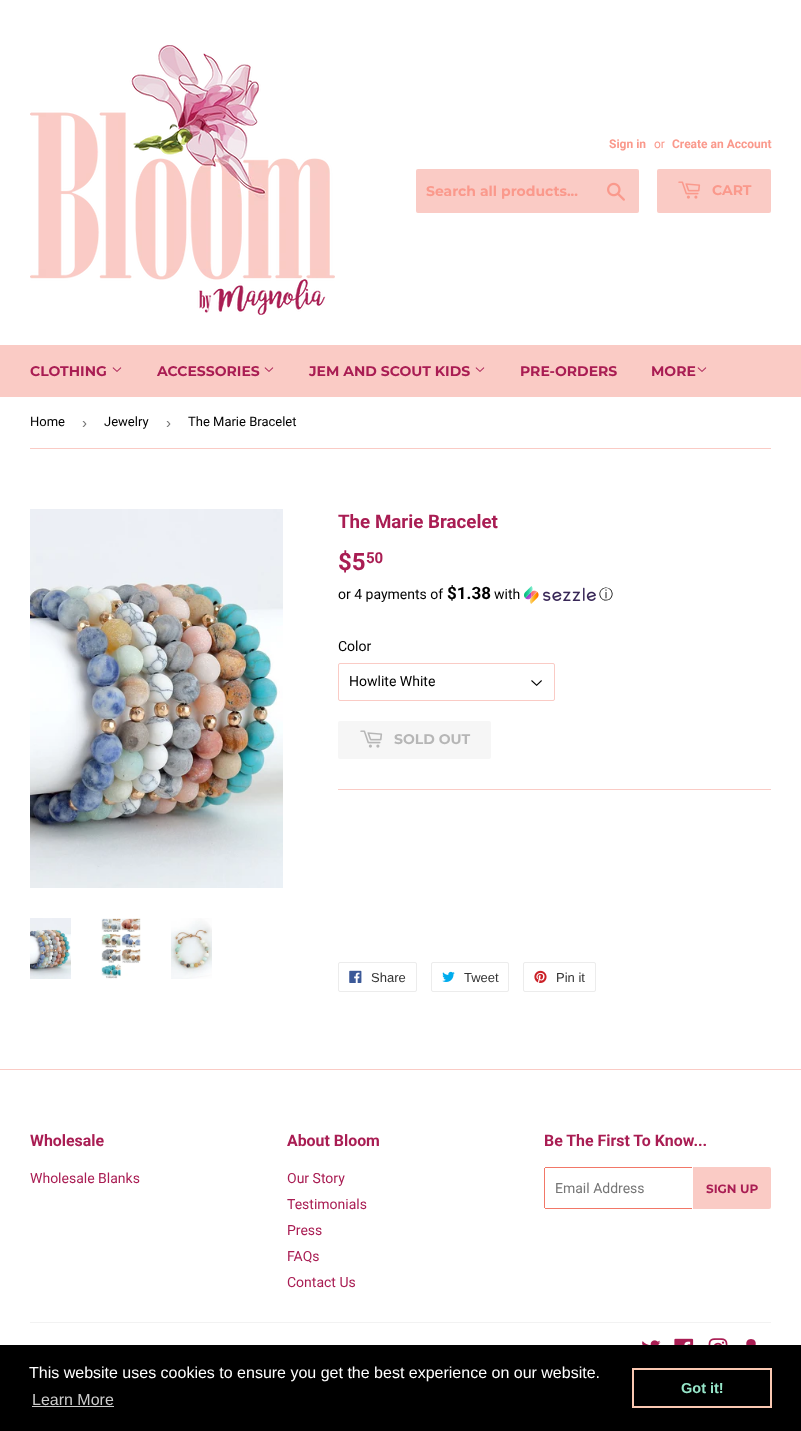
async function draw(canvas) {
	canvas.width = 801;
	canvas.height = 1431;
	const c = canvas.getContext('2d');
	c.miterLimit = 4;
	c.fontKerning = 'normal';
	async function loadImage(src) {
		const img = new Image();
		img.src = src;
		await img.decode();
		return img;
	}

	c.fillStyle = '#fff';
	c.fillRect(0, 0, 801, 1431);
	c.drawImage(await loadImage('img1.png'), 30, 45, 305, 270);
	c.font = 'bold 12px Roboto';
	c.fillStyle = '#fa998c';
	c.fillText('Sign in', 609, 148);
	c.font = '12px Roboto';
	c.fillText('or', 654, 148);
	c.font = 'bold 12px Roboto';
	c.fillText('Create an Account', 672, 148);
	c.fillStyle = '#facbc5';
	c.beginPath();
	c.roundRect(416, 169, 223, 44, 2);
	c.fill();
	c.font = '100 14px Montserrat';
	c.fillStyle = '#fa998c';
	c.fillText('Search all products...', 426, 196);
	c.drawImage(await loadImage('img2.png'), 607, 182, 18, 19);
	c.fillStyle = '#facbc5';
	c.beginPath();
	c.roundRect(657, 169, 114, 44, 2);
	c.fill();
	c.drawImage(await loadImage('img3.png'), 678, 181, 23, 18);
	c.fillStyle = '#fa998c';
	c.fillText('CART', 712, 195);
	c.fillStyle = '#facbc5';
	c.fillRect(0, 345, 801, 52);
	c.fillStyle = '#a91d53';
	c.fillText('CLOTHING', 30, 376);
	c.drawImage(await loadImage('img4.png'), 112, 367, 10, 5);
	c.fillText('ACCESSORIES', 157, 376);
	c.drawImage(await loadImage('img4.png'), 264, 367, 10, 5);
	c.fillText('JEM AND SCOUT KIDS', 309, 376);
	c.drawImage(await loadImage('img4.png'), 475, 367, 10, 5);
	c.fillText('PRE-ORDERS', 520, 376);
	c.fillText('MORE', 651, 376);
	c.drawImage(await loadImage('img4.png'), 697, 367, 10, 5);
	c.fillStyle = '#facbc5';
	c.fillRect(30, 448, 741, 1);
	c.font = '13px Roboto';
	c.fillStyle = '#000';
	c.fillText('Home', 30, 426);
	c.font = '15px Liberation Sans';
	c.fillStyle = '#767676';
	c.fillText('›', 82, 428);
	c.font = '13px Roboto';
	c.fillStyle = '#000';
	c.fillText('Jewelry', 104, 426);
	c.font = '15px Liberation Sans';
	c.fillStyle = '#767676';
	c.fillText('›', 166, 428);
	c.font = '13px Roboto';
	c.fillStyle = '#000';
	c.fillText('The Marie Bracelet', 188, 426);
	c.drawImage(await loadImage('img5.png'), 30, 509, 253, 379);
	c.drawImage(await loadImage('img6.png'), 30, 918, 41, 61);
	c.drawImage(await loadImage('img7.png'), 101, 918, 40, 61);
	c.drawImage(await loadImage('img8.png'), 171, 918, 41, 61);
	c.font = 'bold 18.75px Roboto';
	c.fillStyle = '#a91d53';
	c.fillText('The Marie Bracelet', 338, 528);
	c.font = 'bold 24px Roboto';
	c.fillText('$5', 338, 570);
	c.font = 'bold 15px Roboto';
	c.fillText('50', 366, 563);
	c.font = '14px Roboto';
	c.fillStyle = '#000';
	c.fillText('or 4 payments of', 338, 599);
	c.font = 'bold 17px Roboto';
	c.fillText('$1.38', 447, 599);
	c.font = '14px Roboto';
	c.fillText('with', 494, 599);
	c.drawImage(await loadImage('img9.png'), 524, 586, 72, 18);
	c.font = '500 14px WenQuanYi Zen Hei';
	c.fillText('ⓘ', 599, 599);
	c.font = '14px Roboto';
	c.fillText('Color', 338, 651);
	c.drawImage(await loadImage('img10.png'), 531, 680, 11, 6);
	c.beginPath();
	c.roundRect(338.5, 663.5, 216, 37, 1.5);
	c.strokeStyle = '#facbc5';
	c.stroke();
	c.fillText('Howlite White', 349, 686);
	c.fillStyle = '#f6f6f6';
	c.beginPath();
	c.roundRect(338, 721, 153, 38, 2);
	c.fill();
	c.drawImage(await loadImage('img11.png'), 360, 730, 23, 18);
	c.font = '100 14px Montserrat';
	c.fillStyle = '#b6b6b6';
	c.fillText('SOLD OUT', 394, 744);
	c.fillStyle = '#facbc5';
	c.fillRect(338, 789, 433, 1);
	c.beginPath();
	c.roundRect(338.5, 962.5, 78, 29, 1.5);
	c.strokeStyle = '#ececec';
	c.stroke();
	c.drawImage(await loadImage('img12.png'), 349, 970, 13, 13);
	c.font = '13px Liberation Sans';
	c.fillStyle = '#333';
	c.fillText('Share', 371, 982);
	c.beginPath();
	c.roundRect(431.5, 962.5, 77, 29, 1.5);
	c.stroke();
	c.drawImage(await loadImage('img13.png'), 442, 971, 13, 11);
	c.fillText('Tweet', 464, 982);
	c.beginPath();
	c.roundRect(523.5, 962.5, 72, 29, 1.5);
	c.stroke();
	c.drawImage(await loadImage('img14.png'), 534, 970, 13, 13);
	c.fillText('Pin it', 556, 982);
	c.fillStyle = '#facbc5';
	c.fillRect(0, 1069, 801, 1);
	c.font = 'bold 15.9px Roboto';
	c.fillStyle = '#a91d53';
	c.fillText('Wholesale', 30, 1146);
	c.font = '14px Roboto';
	c.fillText('Wholesale Blanks', 30, 1183);
	c.font = 'bold 15.9px Roboto';
	c.fillText('About Bloom', 287, 1146);
	c.font = '14px Roboto';
	for (const [text, x, y] of [
		['Our Story', 287, 1183],
		['Testimonials', 287, 1209],
		['Press', 287, 1235],
		['FAQs', 287, 1261],
		['Contact Us', 287, 1287],
	]) {
		c.fillText(text, x, y);
	}
	c.font = 'bold 15.9px Roboto';
	c.fillText('Be The First To Know...', 544, 1146);
	for (const [x, y, w, h, color] of [
		[545, 1167, 147, 1, '#f27767'],
		[545, 1208, 147, 1, '#f27767'],
		[544, 1168, 1, 40, '#f27767'],
	]) {
		c.fillStyle = color;
		c.fillRect(x, y, w, h);
	}
	c.font = '14px Roboto';
	c.fillStyle = '#767676';
	c.fillText('Email Address', 555, 1193);
	c.fillStyle = '#facbc5';
	c.beginPath();
	c.roundRect(693, 1167, 78, 42, [0, 2, 2, 0]);
	c.fill();
	c.font = '100 12px Montserrat';
	c.fillStyle = '#a91d53';
	c.fillText('SIGN UP', 706, 1193);
	c.fillStyle = '#f2f2f2';
	c.fillRect(30, 1322, 741, 1);
	c.drawImage(await loadImage('img15.png'), 642, 1340, 19, 5);
	c.drawImage(await loadImage('img16.png'), 674, 1338, 20, 7);
	c.drawImage(await loadImage('img17.png'), 708, 1338, 20, 7);
	c.drawImage(await loadImage('img18.png'), 746, 1339, 10, 6);
	c.fillStyle = '#000';
	c.fillRect(0, 1345, 801, 86);
	c.font = '16px Liberation Sans';
	c.fillStyle = '#fff';
	c.fillText('This website uses cookies to ensure you get the best experience on our website.', 29, 1378);
	c.fillStyle = '#ccc';
	c.fillText('Learn More', 32, 1405);
	c.fillRect(32, 1406, 82, 1);
	c.strokeStyle = '#fac8b2';
	c.lineWidth = 2;
	c.strokeRect(633, 1369, 138, 38);
	c.font = 'bold 14.5px Liberation Sans';
	c.fillStyle = '#96e6c9';
	c.fillText('Got it!', 681, 1393);
}

draw(document.querySelector('canvas'));
